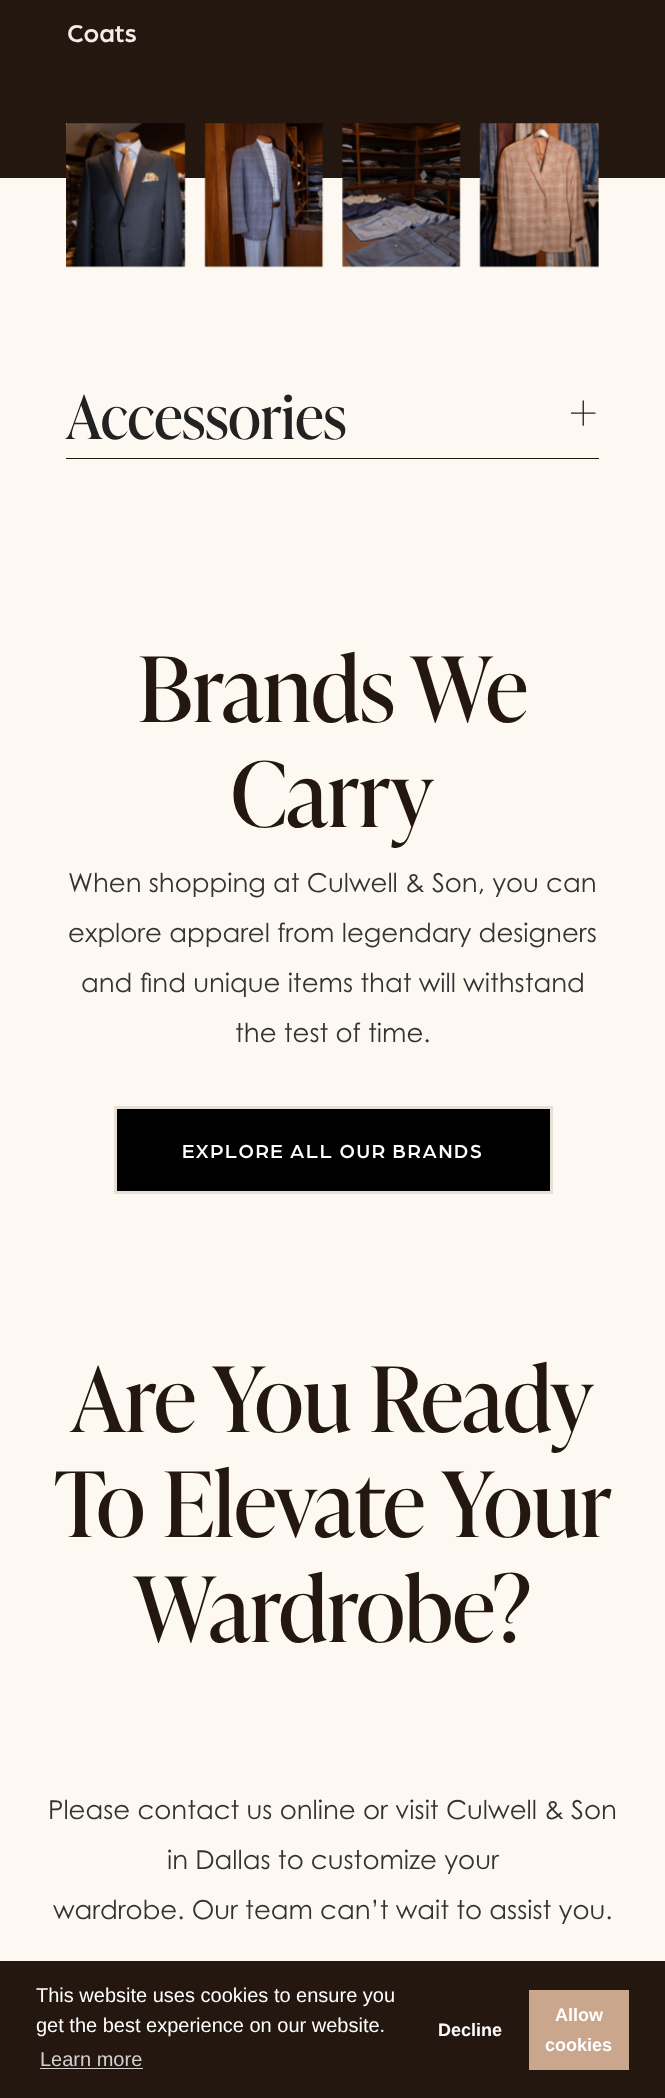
async function draw(canvas) {
	canvas.width = 665;
	canvas.height = 2098;
	const c = canvas.getContext('2d');
	c.miterLimit = 4;
	c.fontKerning = 'normal';
	async function loadImage(src) {
		const img = new Image();
		img.src = src;
		await img.decode();
		return img;
	}

	c.fillStyle = '#fdf9f2';
	c.fillRect(0, 0, 665, 2098);
	c.fillStyle = '#241710';
	c.fillRect(0, 0, 665, 178);
	c.font = '500 26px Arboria';
	c.fillStyle = '#f2ede6';
	c.fillText('Coats', 67, 42);
	c.drawImage(await loadImage('img1.png'), 66, 123, 120, 145);
	c.drawImage(await loadImage('img2.png'), 204, 123, 120, 145);
	c.drawImage(await loadImage('img3.png'), 342, 123, 119, 145);
	c.drawImage(await loadImage('img4.png'), 479, 123, 120, 145);
	c.fillStyle = '#241710';
	c.fillRect(66, 458, 533, 1);
	c.font = '60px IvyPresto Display';
	c.fillStyle = '#222';
	c.fillText('Accessories', 66, 439);
	c.fillText('+', 568, 435);
	c.font = '90px IvyPresto Display';
	c.fillStyle = '#241710';
	c.fillText('Brands We', 138, 722);
	c.fillText('Carry', 231, 827);
	c.font = '26px Century Gothic';
	c.fillStyle = '#333';
	for (const [text, x, y] of [
		['When shopping at Culwell & Son, you can', 68, 892],
		['explore apparel from legendary designers', 68, 942],
		['and find unique items that will withstand', 81, 992],
		['the test of time.', 235, 1042],
	]) {
		c.fillText(text, x, y);
	}
	c.fillStyle = '#000';
	c.beginPath();
	c.rect(115.5, 1107.5, 436, 85);
	c.fill();
	c.strokeStyle = '#e7e0d6';
	c.lineWidth = 3;
	c.stroke();
	c.letterSpacing = '1.6px';
	c.font = '500 20px Arboria';
	c.fillStyle = '#fff';
	c.fillText('EXPLORE ALL OUR BRANDS', 182, 1158);
	c.letterSpacing = '0px';
	c.font = '90px IvyPresto Display';
	c.fillStyle = '#241710';
	for (const [text, x, y] of [
		['Are You Ready', 71, 1432],
		['To Elevate Your', 54, 1537],
		['Wardrobe?', 134, 1642],
	]) {
		c.fillText(text, x, y);
	}
	c.font = '26px Century Gothic';
	c.fillStyle = '#333';
	for (const [text, x, y] of [
		['Please contact us online or visit Culwell & Son', 48, 1819],
		['in Dallas to customize your', 167, 1869],
		['wardrobe. Our team can’t wait to assist you.', 53, 1919],
	]) {
		c.fillText(text, x, y);
	}
	c.fillStyle = '#241710';
	c.fillRect(0, 1961, 665, 137);
	c.font = '20px Liberation Sans';
	c.fillStyle = '#fff';
	c.fillText('This website uses cookies to ensure you', 36, 2002);
	c.fillText('get the best experience on our website.', 36, 2032);
	c.fillStyle = '#d3d1cf';
	c.fillText('Learn more', 40, 2066);
	c.fillRect(40, 2068, 103, 1);
	c.font = 'bold 18px Liberation Sans';
	c.fillStyle = '#fff';
	c.fillText('Decline', 438, 2036);
	c.fillStyle = '#caa68c';
	c.fillRect(529, 1990, 100, 80);
	c.fillStyle = '#fff';
	c.fillText('Allow', 555, 2021);
	c.fillText('cookies', 545, 2051);
}

draw(document.querySelector('canvas'));
